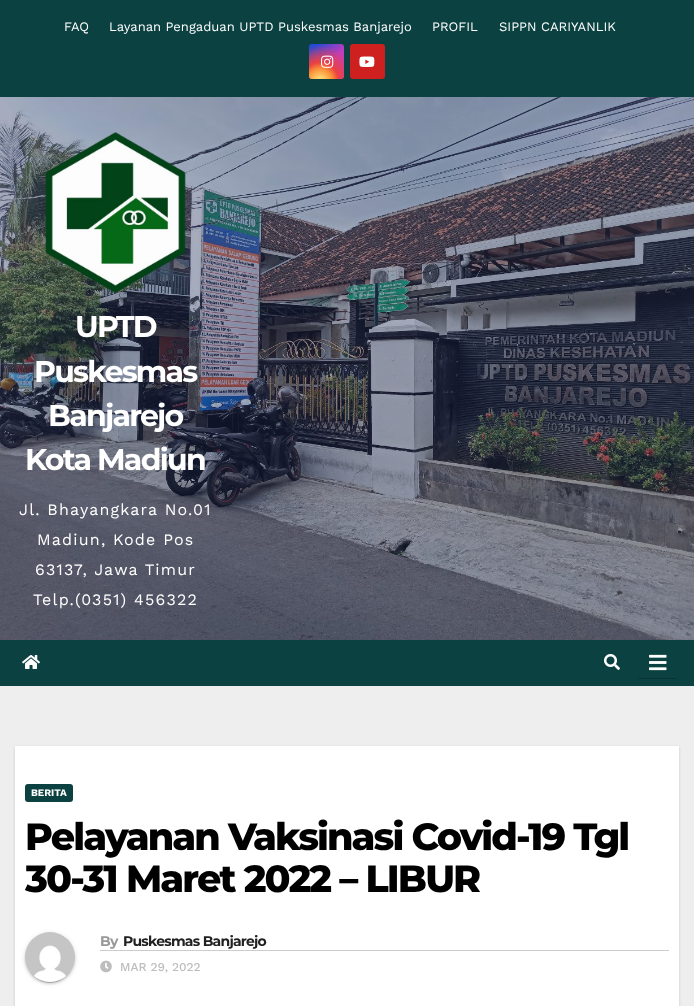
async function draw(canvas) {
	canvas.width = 694;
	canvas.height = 1006;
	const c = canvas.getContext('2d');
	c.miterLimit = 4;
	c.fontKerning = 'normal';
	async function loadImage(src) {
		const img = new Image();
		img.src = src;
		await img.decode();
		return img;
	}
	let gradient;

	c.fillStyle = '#eee';
	c.fillRect(0, 0, 694, 1006);
	c.fillStyle = '#0b4141';
	c.fillRect(0, 0, 694, 97);
	c.font = '13px Work Sans';
	c.fillStyle = '#fff';
	for (const [text, x, y] of [
		['FAQ', 64, 31],
		['Layanan Pengaduan UPTD Puskesmas Banjarejo', 109, 31],
		['PROFIL', 432, 31],
		['SIPPN CARIYANLIK', 499, 31],
	]) {
		c.fillText(text, x, y);
	}
	gradient = c.createLinearGradient(309, 44, 344, 79);
	gradient.addColorStop(0.12, '#234bd7');
	gradient.addColorStop(0.58, '#c33cbe');
	c.fillStyle = gradient;
	c.beginPath();
	c.roundRect(309, 44, 35, 35, 3);
	c.fill();
	gradient = c.createRadialGradient(320, 81, 0, 320, 81, 44);
	gradient.addColorStop(0, '#ffe17d');
	gradient.addColorStop(0.1, '#ffcd69');
	gradient.addColorStop(0.28, '#fa9137');
	gradient.addColorStop(0.42, '#eb4141');
	gradient.addColorStop(0.82, '#eb414100');
	c.fillStyle = gradient;
	c.beginPath();
	c.roundRect(309, 44, 35, 35, 3);
	c.fill();
	c.drawImage(await loadImage('img1.png'), 321, 55, 13, 13);
	c.fillStyle = '#cd201f';
	c.beginPath();
	c.roundRect(350, 44, 35, 35, 3);
	c.fill();
	c.drawImage(await loadImage('img2.png'), 359, 56, 16, 11);
	c.drawImage(await loadImage('img3.png'), 0, 97, 694, 543);
	c.drawImage(await loadImage('img4.png'), 45, 132, 141, 161);
	c.letterSpacing = '-1.75px';
	c.font = 'bold 30px Montserrat';
	c.fillStyle = '#fff';
	for (const [text, x, y] of [
		['UPTD', 75, 337],
		['Puskesmas', 34, 382],
		['Banjarejo', 48, 426],
		['Kota Madiun', 25, 470],
	]) {
		c.fillText(text, x, y);
	}
	c.letterSpacing = '1.2px';
	c.font = '16px Work Sans';
	for (const [text, x, y] of [
		['Jl. Bhayangkara No.01', 19, 515],
		['Madiun, Kode Pos', 37, 545],
		['63137, Jawa Timur', 35, 575],
		['Telp.(0351) 456322', 33, 605],
	]) {
		c.fillText(text, x, y);
	}
	c.fillStyle = '#0b4141';
	c.fillRect(0, 640, 694, 46);
	c.drawImage(await loadImage('img5.png'), 22, 655, 18, 14);
	c.drawImage(await loadImage('img6.png'), 604, 654, 16, 16);
	c.save();
	c.beginPath();
	c.moveTo(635, 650);
	c.lineTo(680, 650);
	c.lineTo(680, 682);
	c.lineTo(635, 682);
	c.closePath();
	c.moveTo(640, 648);
	c.lineTo(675, 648);
	c.bezierCurveTo(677, 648, 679, 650, 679, 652);
	c.lineTo(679, 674);
	c.bezierCurveTo(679, 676, 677, 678, 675, 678);
	c.lineTo(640, 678);
	c.bezierCurveTo(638, 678, 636, 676, 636, 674);
	c.lineTo(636, 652);
	c.bezierCurveTo(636, 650, 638, 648, 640, 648);
	c.closePath();
	c.clip('evenodd');
	c.fillStyle = '#00000033';
	c.filter = 'blur(0.5px)';
	c.beginPath();
	c.roundRect(638, 653, 39, 26, 2);
	c.fill();
	c.filter = 'none';
	c.restore();
	c.drawImage(await loadImage('img7.png'), 649, 654, 18, 17);
	c.fillStyle = '#00000026';
	c.filter = 'blur(1.5px)';
	c.beginPath();
	c.rect(15, 747, 664, 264);
	c.fill();
	c.filter = 'none';
	c.fillStyle = '#fff';
	c.fillRect(15, 746, 664, 260);
	c.fillStyle = '#0b4141';
	c.beginPath();
	c.roundRect(25, 784, 48, 18, 3);
	c.fill();
	c.letterSpacing = '0px';
	c.font = 'bold 10px Work Sans';
	c.fillStyle = '#fff';
	c.fillText('BERITA', 31, 796);
	c.letterSpacing = '-1.9px';
	c.font = '800 38px Montserrat';
	c.fillStyle = '#000';
	c.fillText('Pelayanan Vaksinasi Covid-19 Tgl', 25, 850);
	c.fillText('30-31 Maret 2022 – LIBUR', 25, 892);
	c.fillStyle = '#0000001f';
	c.filter = 'blur(2.5px)';
	c.beginPath();
	c.roundRect(25, 933, 50, 50, 25);
	c.fill();
	c.filter = 'none';
	c.fillStyle = '#00000033';
	c.filter = 'blur(0.5px)';
	c.beginPath();
	c.roundRect(27, 937, 46, 46, 23);
	c.fill();
	c.filter = 'none';
	c.fillStyle = '#00000024';
	c.filter = 'blur(1px)';
	c.beginPath();
	c.roundRect(25, 934, 50, 50, 25);
	c.fill();
	c.filter = 'none';
	c.drawImage(await loadImage('img8.png'), 25, 932, 50, 50);
	c.fillStyle = '#ccc';
	c.fillRect(100, 950, 569, 1);
	c.letterSpacing = '-0.75px';
	c.font = 'bold 14px Montserrat';
	c.fillStyle = '#999';
	c.fillText('By', 100, 946);
	c.fillStyle = '#212121';
	c.fillText('Puskesmas Banjarejo', 123, 946);
	c.drawImage(await loadImage('img9.png'), 100, 960, 12, 13);
	c.letterSpacing = '0px';
	c.font = '500 12px Work Sans';
	c.fillStyle = '#bdbdbd';
	c.fillText('MAR 29, 2022', 120, 971);
}

draw(document.querySelector('canvas'));
